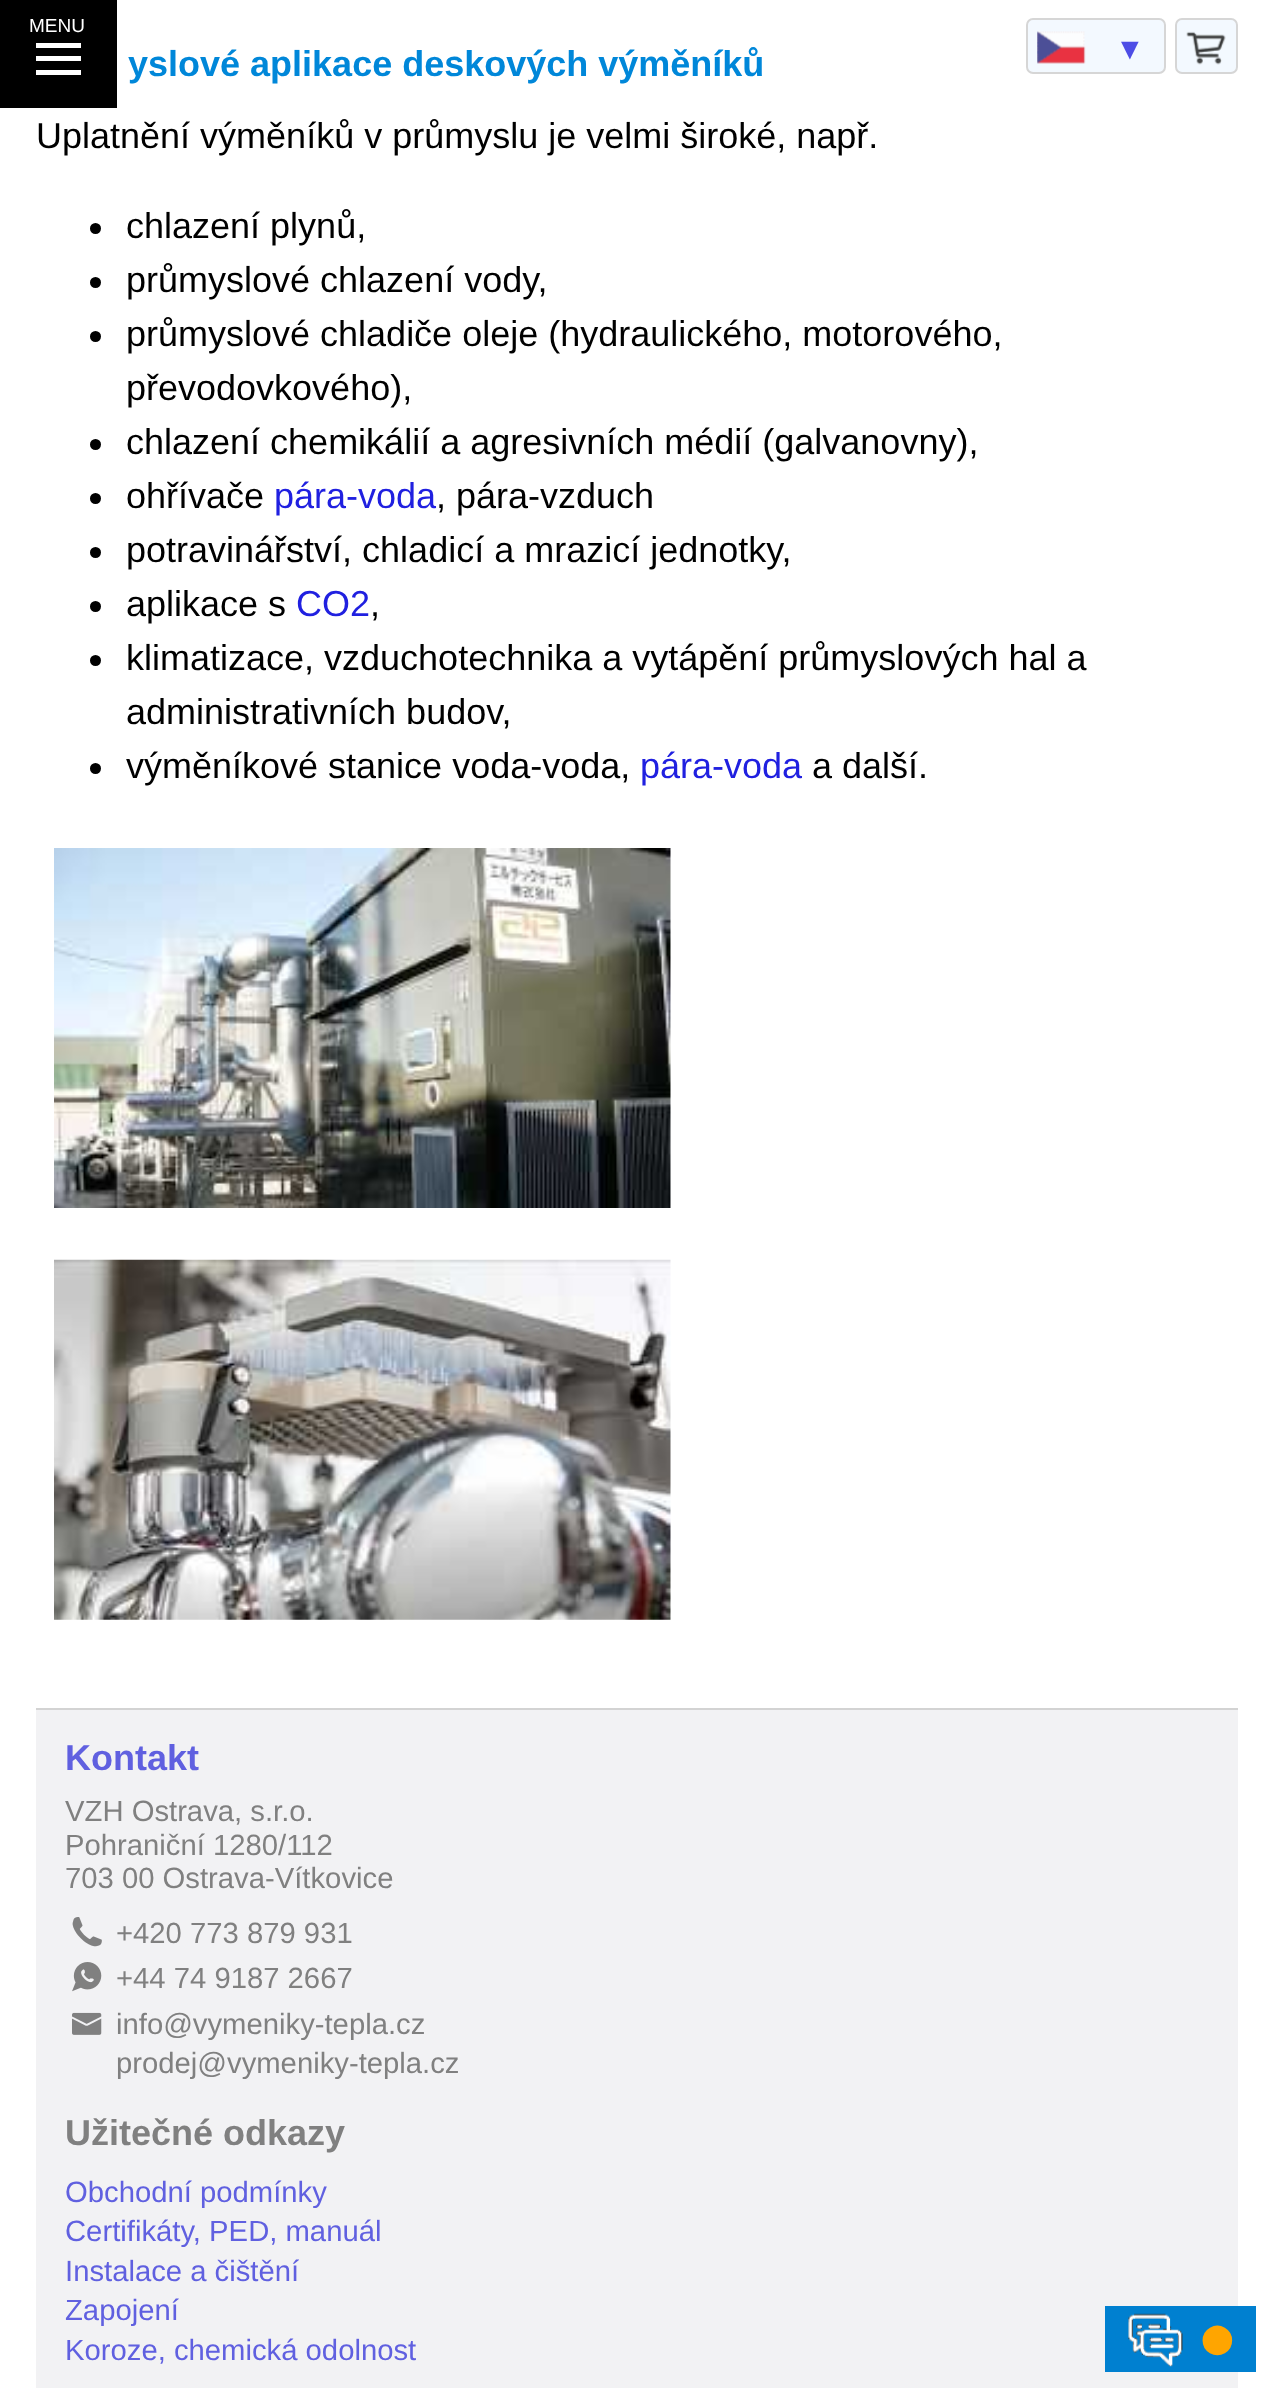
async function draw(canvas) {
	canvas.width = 1272;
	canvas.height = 2388;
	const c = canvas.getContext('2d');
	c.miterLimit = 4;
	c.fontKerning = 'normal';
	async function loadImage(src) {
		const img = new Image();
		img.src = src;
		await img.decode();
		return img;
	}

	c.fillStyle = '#fff';
	c.fillRect(0, 0, 1272, 2388);
	c.fillStyle = '#000';
	c.fillRect(0, 0, 117, 108);
	c.font = '19px Liberation Sans';
	c.fillStyle = '#fff';
	c.fillText('MENU', 29, 32);
	for (const [x, y, w, h, color] of [
		[36, 56, 45, 5, '#fff'],
		[36, 43, 45, 5, '#fff'],
		[36, 70, 45, 5, '#fff'],
	]) {
		c.fillStyle = color;
		c.fillRect(x, y, w, h);
	}
	c.font = 'bold 36px Liberation Sans';
	c.fillStyle = '#0087d9';
	c.fillText('yslové aplikace deskových výměníků', 128, 76);
	c.font = '36px Liberation Sans';
	c.fillStyle = '#000';
	c.fillText('Uplatnění výměníků v průmyslu je velmi široké, např.', 36, 148);
	c.beginPath();
	c.arc(95.5, 228.5, 5.5, 0, 2 * Math.PI);
	c.fill();
	c.fillText('chlazení plynů,', 126, 238);
	c.beginPath();
	c.arc(95.5, 282.5, 5.5, 0, 2 * Math.PI);
	c.fill();
	c.fillText('průmyslové chlazení vody,', 126, 292);
	c.beginPath();
	c.arc(95.5, 336.5, 5.5, 0, 2 * Math.PI);
	c.fill();
	c.fillText('průmyslové chladiče oleje (hydraulického, motorového,', 126, 346);
	c.fillText('převodovkového),', 126, 400);
	c.beginPath();
	c.arc(95.5, 444.5, 5.5, 0, 2 * Math.PI);
	c.fill();
	c.fillText('chlazení chemikálií a agresivních médií (galvanovny),', 126, 454);
	c.beginPath();
	c.arc(95.5, 498.5, 5.5, 0, 2 * Math.PI);
	c.fill();
	c.fillText('ohřívače', 126, 508);
	c.fillStyle = '#2020e0';
	c.fillText('pára-voda', 274, 508);
	c.fillStyle = '#000';
	c.fillText(', pára-vzduch', 436, 508);
	c.beginPath();
	c.arc(95.5, 552.5, 5.5, 0, 2 * Math.PI);
	c.fill();
	c.fillText('potravinářství, chladicí a mrazicí jednotky,', 126, 562);
	c.beginPath();
	c.arc(95.5, 606.5, 5.5, 0, 2 * Math.PI);
	c.fill();
	c.fillText('aplikace s', 126, 616);
	c.fillStyle = '#2020e0';
	c.fillText('CO2', 296, 616);
	c.fillStyle = '#000';
	c.fillText(',', 370, 616);
	c.beginPath();
	c.arc(95.5, 660.5, 5.5, 0, 2 * Math.PI);
	c.fill();
	c.fillText('klimatizace, vzduchotechnika a vytápění průmyslových hal a', 126, 670);
	c.fillText('administrativních budov,', 126, 724);
	c.beginPath();
	c.arc(95.5, 768.5, 5.5, 0, 2 * Math.PI);
	c.fill();
	c.fillText('výměníkové stanice voda-voda,', 126, 778);
	c.fillStyle = '#2020e0';
	c.fillText('pára-voda', 640, 778);
	c.fillStyle = '#000';
	c.fillText('a další.', 812, 778);
	c.drawImage(await loadImage('img1.png'), 54, 848, 617, 360);
	c.drawImage(await loadImage('img2.png'), 54, 1259, 617, 361);
	c.fillStyle = '#f3f9ff';
	c.beginPath();
	c.roundRect(1027, 19, 138, 54, 6);
	c.fill();
	c.strokeStyle = '#d6d6d6';
	c.lineWidth = 2;
	c.stroke();
	c.drawImage(await loadImage('img3.png'), 1037, 31, 49, 33);
	c.font = '30px Liberation Sans';
	c.fillStyle = '#4d4de6';
	c.fillText('▼', 1115, 59);
	c.fillStyle = '#f3f9ff';
	c.beginPath();
	c.roundRect(1176, 19, 61, 54, 6);
	c.fill();
	c.stroke();
	c.drawImage(await loadImage('img4.png'), 1186, 31, 40, 34);
	c.fillStyle = '#f2f2f4';
	c.fillRect(36, 1710, 1202, 678);
	c.fillStyle = '#d3d3d3';
	c.fillRect(36, 1708, 1202, 2);
	c.font = 'bold 36px Liberation Sans';
	c.fillStyle = '#6060e0';
	c.fillText('Kontakt', 65, 1770);
	c.font = '29.25px Liberation Sans';
	c.fillStyle = '#808080';
	for (const [text, x, y] of [
		['VZH Ostrava, s.r.o.', 65, 1821],
		['Pohraniční 1280/112', 65, 1855],
		['703 00 Ostrava-Vítkovice', 65, 1888],
	]) {
		c.fillText(text, x, y);
	}
	c.drawImage(await loadImage('img5.png'), 72, 1917, 30, 30);
	c.fillText('+420 773 879 931', 116, 1943);
	c.drawImage(await loadImage('img6.png'), 72, 1962, 30, 30);
	c.fillText('+44 74 9187 2667', 116, 1988);
	c.drawImage(await loadImage('img7.png'), 72, 2012, 30, 23);
	c.fillText('info@vymeniky-tepla.cz', 116, 2034);
	c.fillText('prodej@vymeniky-tepla.cz', 116, 2073);
	c.font = 'bold 36px Liberation Sans';
	c.fillText('Užitečné odkazy', 65, 2145);
	c.font = '29.25px Liberation Sans';
	c.fillStyle = '#6060e0';
	for (const [text, x, y] of [
		['Obchodní podmínky', 65, 2202],
		['Certifikáty, PED, manuál', 65, 2241],
		['Instalace a čištění', 65, 2281],
		['Zapojení', 65, 2320],
		['Koroze, chemická odolnost', 65, 2360],
	]) {
		c.fillText(text, x, y);
	}
	c.fillStyle = '#0080d0';
	c.fillRect(1105, 2306, 151, 66);
	c.drawImage(await loadImage('img8.png'), 1128, 2313, 55, 54);
	c.font = '29.25px DejaVu Sans';
	c.fillStyle = '#ffa500';
	c.fillText('⬤', 1201, 2348);
}

draw(document.querySelector('canvas'));
